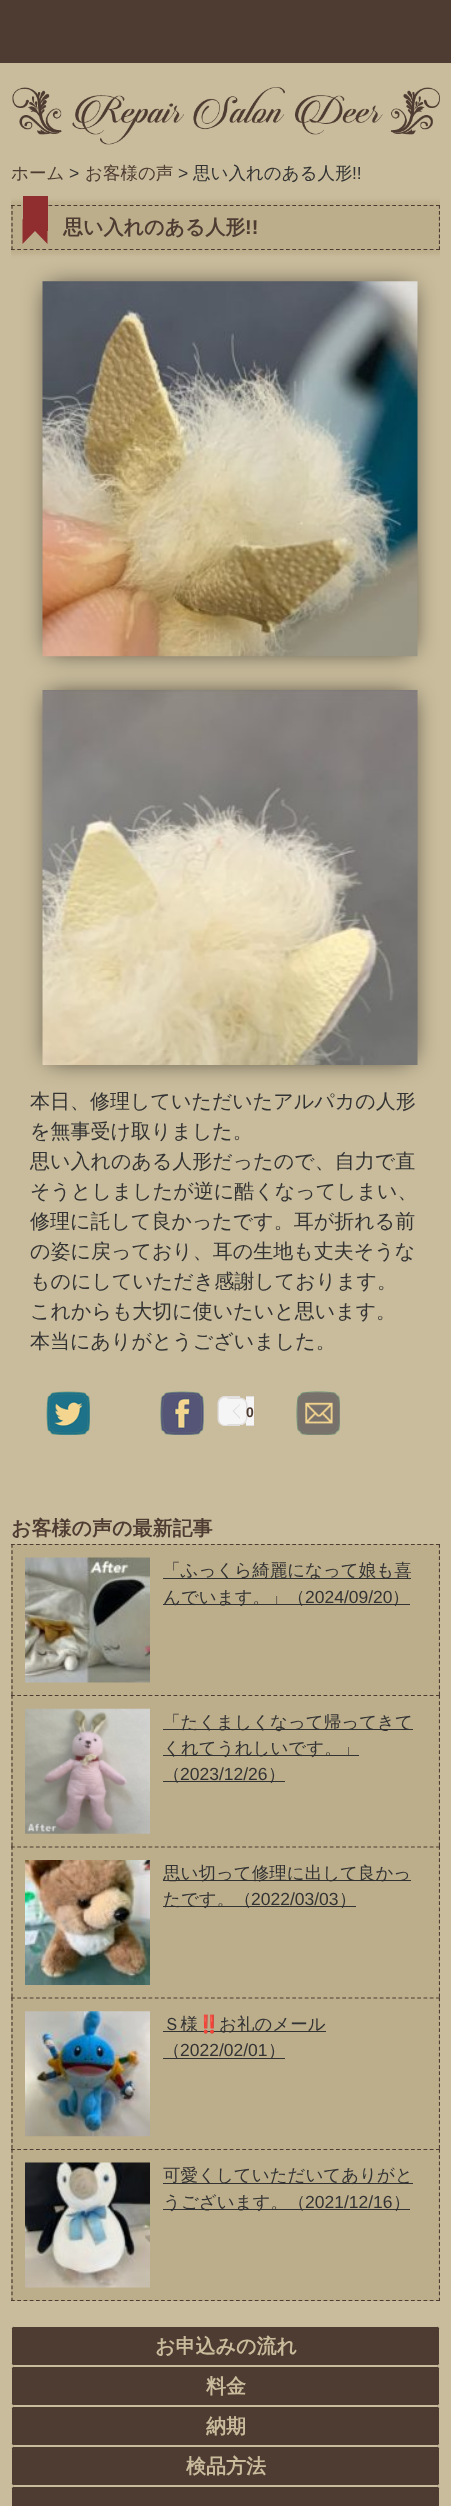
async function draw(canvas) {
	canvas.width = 451;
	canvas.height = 2506;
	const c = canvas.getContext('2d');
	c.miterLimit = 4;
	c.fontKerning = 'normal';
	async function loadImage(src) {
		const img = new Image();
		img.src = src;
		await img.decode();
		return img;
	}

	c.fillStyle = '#c9bc9c';
	c.fillRect(0, 0, 451, 2506);
	c.fillStyle = '#4e3c32';
	c.fillRect(0, 0, 451, 63);
	c.drawImage(await loadImage('img1.png'), 12, 87, 428, 58);
	c.font = '500 17.5px WenQuanYi Zen Hei';
	c.fillText('ホーム', 11, 179);
	c.font = '17.5px Liberation Sans';
	c.fillStyle = '#333';
	c.fillText('>', 69, 179);
	c.font = '500 17.5px WenQuanYi Zen Hei';
	c.fillStyle = '#4e3c32';
	c.fillText('お客様の声', 85, 179);
	c.font = '17.5px Liberation Sans';
	c.fillStyle = '#333';
	c.fillText('>', 178, 179);
	c.font = '500 17.5px WenQuanYi Zen Hei';
	c.fillText('思い入れのある人形', 193, 179);
	c.font = '17.5px Liberation Sans';
	c.fillText('!!', 352, 179);
	c.save();
	c.beginPath();
	c.rect(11, 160, 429, 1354);
	c.clip();
	c.fillStyle = '#bcae8b';
	c.filter = 'blur(2px)';
	c.beginPath();
	c.rect(8, 201, 436, 53);
	c.fill();
	c.filter = 'none';
	c.restore();
	c.beginPath();
	c.moveTo(11, 205.5);
	c.lineTo(440, 205.5);
	c.strokeStyle = '#4e3c32';
	c.lineWidth = 1.2;
	c.setLineDash([3.75, 2.5]);
	c.stroke();
	c.fillStyle = '#000000cc';
	c.filter = 'blur(12.5px)';
	c.beginPath();
	c.rect(49, 288, 362, 362);
	c.fill();
	c.filter = 'none';
	c.save();
	c.beginPath();
	c.rect(11, 160, 429, 1354);
	c.clip();
	c.beginPath();
	c.moveTo(439.5, 205);
	c.lineTo(439.5, 250);
	c.setLineDash([3.75, 2.14]);
	c.stroke();
	c.restore();
	c.beginPath();
	c.moveTo(11, 249.5);
	c.lineTo(440, 249.5);
	c.stroke();
	c.beginPath();
	c.moveTo(12, 205);
	c.lineTo(12, 250);
	c.setLineDash([3.75, 2.14]);
	c.stroke();
	c.fillStyle = '#902e2f';
	c.fillRect(23, 196, 25, 35);
	c.font = 'bold 20px WenQuanYi Zen Hei';
	c.fillStyle = '#4e3c32';
	c.fillText('思い入れのある人形', 63, 234);
	c.fillStyle = '#902e2f';
	c.beginPath();
	c.moveTo(47.5, 219);
	c.lineTo(47.5, 244);
	c.lineTo(35, 231);
	c.closePath();
	c.moveTo(22.5, 244);
	c.lineTo(22.5, 219);
	c.lineTo(35, 231);
	c.closePath();
	c.fill();
	c.font = 'bold 20px Liberation Sans';
	c.fillStyle = '#4e3c32';
	c.fillText('!!', 245, 234);
	c.drawImage(await loadImage('img2.png'), 42, 281, 376, 376);
	c.fillStyle = '#000000cc';
	c.filter = 'blur(12.5px)';
	c.beginPath();
	c.rect(49, 696, 362, 363);
	c.fill();
	c.filter = 'none';
	c.drawImage(await loadImage('img3.png'), 42, 690, 376, 375);
	c.font = '500 20px WenQuanYi Zen Hei';
	c.fillStyle = '#333';
	for (const [text, x, y] of [
		['本日、修理していただいたアルパカの人形', 30, 1108],
		['を無事受け取りました。', 30, 1138],
		['思い入れのある人形だったので、自力で直', 30, 1168],
		['そうとしましたが逆に酷くなってしまい、', 30, 1198],
		['修理に託して良かったです。耳が折れる前', 30, 1228],
		['の姿に戻っており、耳の生地も丈夫そうな', 30, 1258],
		['ものにしていただき感謝しております。', 30, 1288],
		['これからも大切に使いたいと思います。', 30, 1318],
		['本当にありがとうございました。', 30, 1348],
	]) {
		c.fillText(text, x, y);
	}
	c.drawImage(await loadImage('img4.png'), 46, 1391, 44, 44);
	c.drawImage(await loadImage('img5.png'), 160, 1391, 44, 44);
	c.fillStyle = '#f5f5f5';
	c.beginPath();
	c.roundRect(218, 1396, 22, 30, [8, 0, 0, 8]);
	c.fill();
	c.fillStyle = '#e0dddd';
	c.beginPath();
	c.moveTo(225, 1396);
	c.lineTo(240, 1396);
	c.lineTo(240, 1426);
	c.lineTo(225, 1426);
	c.bezierCurveTo(221, 1426, 217.5, 1423, 217.5, 1419);
	c.lineTo(217.5, 1404);
	c.bezierCurveTo(217.5, 1399.5, 221, 1396, 225, 1396);
	c.closePath();
	c.moveTo(225, 1397.5);
	c.lineTo(240, 1397.5);
	c.lineTo(240, 1425);
	c.lineTo(225, 1425);
	c.bezierCurveTo(221.5, 1425, 219, 1422, 219, 1419);
	c.lineTo(219, 1404);
	c.bezierCurveTo(219, 1400.5, 221.5, 1397.5, 225, 1397.5);
	c.closePath();
	c.fill('evenodd');
	for (const [x, y, w, h, color] of [
		[246, 1396, 8, 30, '#f5f5f5'],
		[246, 1396, 8, 1, '#e0dddd'],
		[246, 1425, 8, 1, '#e0dddd'],
	]) {
		c.fillStyle = color;
		c.fillRect(x, y, w, h);
	}
	c.fillStyle = '#f5f5f5';
	c.beginPath();
	c.roundRect(228, 1398, 20, 27, [0, 8, 8, 0]);
	c.fill();
	c.fillStyle = '#e0dddd';
	c.beginPath();
	c.moveTo(227.5, 1397.5);
	c.lineTo(240, 1397.5);
	c.bezierCurveTo(244, 1397.5, 247.5, 1401, 247.5, 1405);
	c.lineTo(247.5, 1417.5);
	c.bezierCurveTo(247.5, 1421.5, 244, 1425, 240, 1425);
	c.lineTo(227.5, 1425);
	c.closePath();
	c.moveTo(227.5, 1399);
	c.lineTo(240, 1399);
	c.bezierCurveTo(243.5, 1399, 246, 1401.5, 246, 1405);
	c.lineTo(246, 1417.5);
	c.bezierCurveTo(246, 1421, 243.5, 1424, 240, 1424);
	c.lineTo(227.5, 1424);
	c.closePath();
	c.fill('evenodd');
	c.beginPath();
	c.moveTo(240, 1404);
	c.lineTo(240, 1419);
	c.lineTo(232.5, 1411);
	c.closePath();
	c.fill();
	c.fillStyle = '#f5f5f5';
	c.beginPath();
	c.moveTo(240, 1405);
	c.lineTo(240, 1417.5);
	c.lineTo(234, 1411);
	c.closePath();
	c.fill();
	c.font = 'bold 14px Liberation Sans';
	c.fillStyle = '#4e3c32';
	c.fillText('0', 246, 1417);
	c.drawImage(await loadImage('img6.png'), 296, 1391, 44, 44);
	c.font = 'bold 20px WenQuanYi Zen Hei';
	c.fillText('お客様の声の最新記事', 11, 1535);
	c.fillStyle = '#bcae8b';
	c.fillRect(11, 1544, 429, 757);
	c.beginPath();
	c.moveTo(11, 1544.5);
	c.lineTo(440, 1544.5);
	c.setLineDash([3.75, 2.5]);
	c.stroke();
	c.save();
	c.beginPath();
	c.rect(11, 160, 429, 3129);
	c.clip();
	c.beginPath();
	c.moveTo(439.5, 1544);
	c.lineTo(439.5, 1695);
	c.setLineDash([3.75, 2.4]);
	c.stroke();
	c.restore();
	c.beginPath();
	c.moveTo(12, 1544);
	c.lineTo(12, 1695);
	c.setLineDash([3.75, 2.4]);
	c.stroke();
	c.drawImage(await loadImage('img7.png'), 25, 1557, 125, 126);
	c.fillStyle = '#333';
	c.fillRect(163, 1578, 248, 1);
	c.font = '500 17.5px WenQuanYi Zen Hei';
	c.fillText('「ふっくら綺麗になって娘も喜', 163, 1576);
	c.fillRect(163, 1604, 247, 1);
	c.fillText('んでいます。」（', 163, 1603);
	c.font = '17.5px Liberation Sans';
	c.fillText('2024/09/20', 305, 1603);
	c.font = '500 17.5px WenQuanYi Zen Hei';
	c.fillText('）', 392, 1603);
	c.beginPath();
	c.moveTo(11, 1695.5);
	c.lineTo(440, 1695.5);
	c.setLineDash([3.75, 2.5]);
	c.stroke();
	c.save();
	c.beginPath();
	c.rect(11, 160, 429, 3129);
	c.clip();
	c.beginPath();
	c.moveTo(439.5, 1695);
	c.lineTo(439.5, 1846);
	c.setLineDash([3.75, 2.4]);
	c.stroke();
	c.restore();
	c.beginPath();
	c.moveTo(12, 1695);
	c.lineTo(12, 1846);
	c.setLineDash([3.75, 2.4]);
	c.stroke();
	c.drawImage(await loadImage('img8.png'), 25, 1708, 125, 126);
	c.fillRect(163, 1729, 250, 1);
	c.fillText('「たくましくなって帰ってきて', 163, 1728);
	c.fillRect(163, 1755, 196, 1);
	c.fillText('くれてうれしいです。」', 163, 1754);
	c.fillRect(163, 1781, 122, 1);
	c.fillText('（', 163, 1780);
	c.font = '17.5px Liberation Sans';
	c.fillText('2023/12/26', 180, 1780);
	c.font = '500 17.5px WenQuanYi Zen Hei';
	c.fillText('）', 268, 1780);
	c.beginPath();
	c.moveTo(11, 1847);
	c.lineTo(440, 1847);
	c.setLineDash([3.75, 2.5]);
	c.stroke();
	c.save();
	c.beginPath();
	c.rect(11, 160, 429, 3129);
	c.clip();
	c.beginPath();
	c.moveTo(439.5, 1846);
	c.lineTo(439.5, 1997.5);
	c.setLineDash([3.75, 2.4]);
	c.stroke();
	c.restore();
	c.beginPath();
	c.moveTo(12, 1846);
	c.lineTo(12, 1997.5);
	c.setLineDash([3.75, 2.4]);
	c.stroke();
	c.drawImage(await loadImage('img9.png'), 25, 1860, 125, 125);
	c.fillRect(163, 1880, 248, 1);
	c.fillText('思い切って修理に出して良かっ', 163, 1879);
	c.fillRect(163, 1906, 193, 1);
	c.fillText('たです。（', 163, 1905);
	c.font = '17.5px Liberation Sans';
	c.fillText('2022/03/03', 251, 1905);
	c.font = '500 17.5px WenQuanYi Zen Hei';
	c.fillText('）', 339, 1905);
	c.beginPath();
	c.moveTo(11, 1998);
	c.lineTo(440, 1998);
	c.setLineDash([3.75, 2.5]);
	c.stroke();
	c.save();
	c.beginPath();
	c.rect(11, 160, 429, 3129);
	c.clip();
	c.beginPath();
	c.moveTo(439.5, 1997.5);
	c.lineTo(439.5, 2149);
	c.setLineDash([3.75, 2.4]);
	c.stroke();
	c.restore();
	c.beginPath();
	c.moveTo(12, 1997.5);
	c.lineTo(12, 2149);
	c.setLineDash([3.75, 2.4]);
	c.stroke();
	c.drawImage(await loadImage('img10.png'), 25, 2011, 125, 126);
	c.fillRect(163, 2031, 163, 1);
	c.fillText('Ｓ様', 163, 2030);
	c.font = '17.5px Noto Color Emoji';
	c.fillText('‼️', 198, 2030);
	c.font = '500 17.5px WenQuanYi Zen Hei';
	c.fillText('お礼のメール', 219, 2030);
	c.fillRect(163, 2058, 122, 1);
	c.fillText('（', 163, 2056);
	c.font = '17.5px Liberation Sans';
	c.fillText('2022/02/01', 180, 2056);
	c.font = '500 17.5px WenQuanYi Zen Hei';
	c.fillText('）', 268, 2056);
	c.beginPath();
	c.moveTo(11, 2149.5);
	c.lineTo(440, 2149.5);
	c.setLineDash([3.75, 2.5]);
	c.stroke();
	c.save();
	c.beginPath();
	c.rect(11, 160, 429, 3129);
	c.clip();
	c.beginPath();
	c.moveTo(439.5, 2149);
	c.lineTo(439.5, 2301);
	c.setLineDash([3.75, 2.45]);
	c.stroke();
	c.restore();
	c.beginPath();
	c.moveTo(11, 2300.5);
	c.lineTo(440, 2300.5);
	c.stroke();
	c.beginPath();
	c.moveTo(12, 2149);
	c.lineTo(12, 2301);
	c.setLineDash([3.75, 2.45]);
	c.stroke();
	c.drawImage(await loadImage('img11.png'), 25, 2162, 125, 126);
	c.fillRect(163, 2183, 250, 1);
	c.fillText('可愛くしていただいてありがと', 163, 2181);
	c.fillRect(163, 2209, 247, 1);
	c.fillText('うございます。（', 163, 2208);
	c.font = '17.5px Liberation Sans';
	c.fillText('2021/12/16', 305, 2208);
	c.font = '500 17.5px WenQuanYi Zen Hei';
	c.fillText('）', 393, 2208);
	c.fillStyle = '#4e3c32';
	c.beginPath();
	c.roundRect(11.5, 2326.5, 428, 39, 2);
	c.fill();
	c.strokeStyle = '#c9bc9c';
	c.lineWidth = 1;
	c.setLineDash([]);
	c.stroke();
	c.font = 'bold 20px WenQuanYi Zen Hei';
	c.fillStyle = '#c9bc9c';
	c.fillText('お申込みの流れ', 155, 2353);
	c.fillStyle = '#4e3c32';
	c.beginPath();
	c.roundRect(11.5, 2366.5, 428, 39, 2);
	c.fill();
	c.stroke();
	c.fillStyle = '#c9bc9c';
	c.fillText('料金', 206, 2393);
	c.fillStyle = '#4e3c32';
	c.beginPath();
	c.roundRect(11.5, 2406.5, 428, 39, 2);
	c.fill();
	c.stroke();
	c.fillStyle = '#c9bc9c';
	c.fillText('納期', 206, 2433);
	c.fillStyle = '#4e3c32';
	c.beginPath();
	c.roundRect(11.5, 2446.5, 428, 39, 2);
	c.fill();
	c.stroke();
	c.fillStyle = '#c9bc9c';
	c.fillText('検品方法', 186, 2473);
	c.fillStyle = '#4e3c32';
	c.beginPath();
	c.roundRect(11.5, 2486.5, 428, 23, 2);
	c.fill();
	c.stroke();
}

draw(document.querySelector('canvas'));
